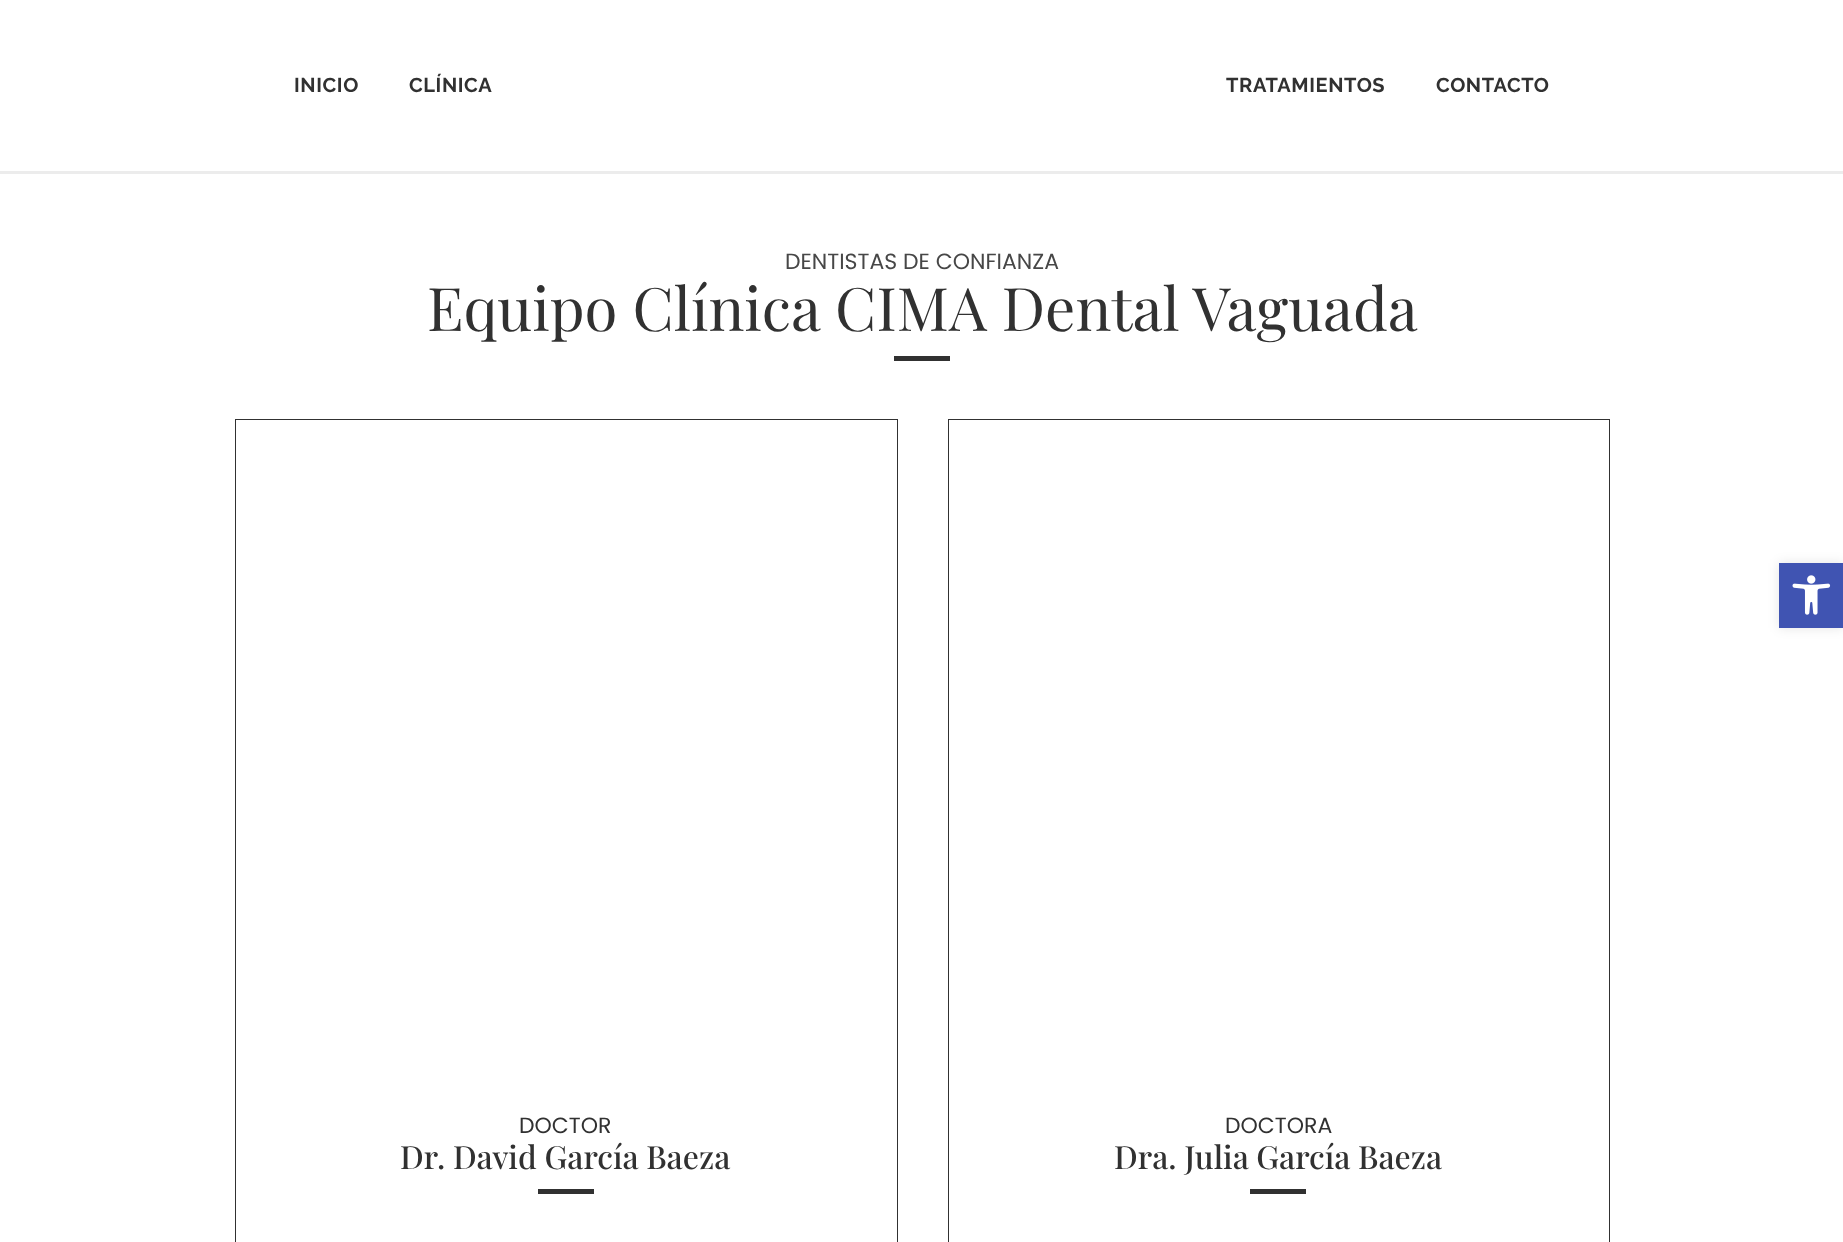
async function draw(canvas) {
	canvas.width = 1843;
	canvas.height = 1242;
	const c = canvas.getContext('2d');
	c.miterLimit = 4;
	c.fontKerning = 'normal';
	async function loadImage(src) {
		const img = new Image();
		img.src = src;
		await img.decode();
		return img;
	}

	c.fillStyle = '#fff';
	c.fillRect(0, 0, 1843, 1242);
	c.fillStyle = '#ececec';
	c.fillRect(0, 171, 1843, 3);
	c.letterSpacing = '0.6px';
	c.font = 'bold 20px Raleway';
	c.fillStyle = '#313131';
	for (const [text, x, y] of [
		['INICIO', 294, 92],
		['CLÍNICA', 409, 92],
		['TRATAMIENTOS', 1226, 92],
		['CONTACTO', 1436, 92],
	]) {
		c.fillText(text, x, y);
	}
	c.letterSpacing = '0px';
	c.font = '22px Poppins';
	c.fillStyle = '#474747';
	c.fillText('DENTISTAS DE CONFIANZA', 785, 269);
	c.font = '60px Playfair Display';
	c.fillStyle = '#313131';
	c.fillText('Equipo Clínica CIMA Dental Vaguada', 427, 331);
	c.fillRect(894, 356, 56, 5);
	c.strokeStyle = '#313131';
	c.strokeRect(235.5, 419.5, 662, 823);
	c.font = '22px Poppins';
	c.fillText('DOCTOR', 519, 1133);
	c.font = '500 32px Playfair Display';
	c.fillText('Dr. David García Baeza', 400, 1169);
	c.fillRect(538, 1189, 56, 5);
	c.strokeRect(948.5, 419.5, 661, 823);
	c.font = '22px Poppins';
	c.fillText('DOCTORA', 1225, 1133);
	c.font = '500 32px Playfair Display';
	c.fillText('Dra. Julia García Baeza', 1114, 1169);
	c.fillRect(1250, 1189, 56, 5);
	c.fillStyle = '#0000001a';
	c.filter = 'blur(6px)';
	c.beginPath();
	c.rect(1779, 563, 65, 65);
	c.fill();
	c.filter = 'none';
	c.fillStyle = '#4054b2';
	c.fillRect(1779, 563, 64, 65);
	c.drawImage(await loadImage('img1.png'), 1792, 575, 39, 40);
}

draw(document.querySelector('canvas'));
